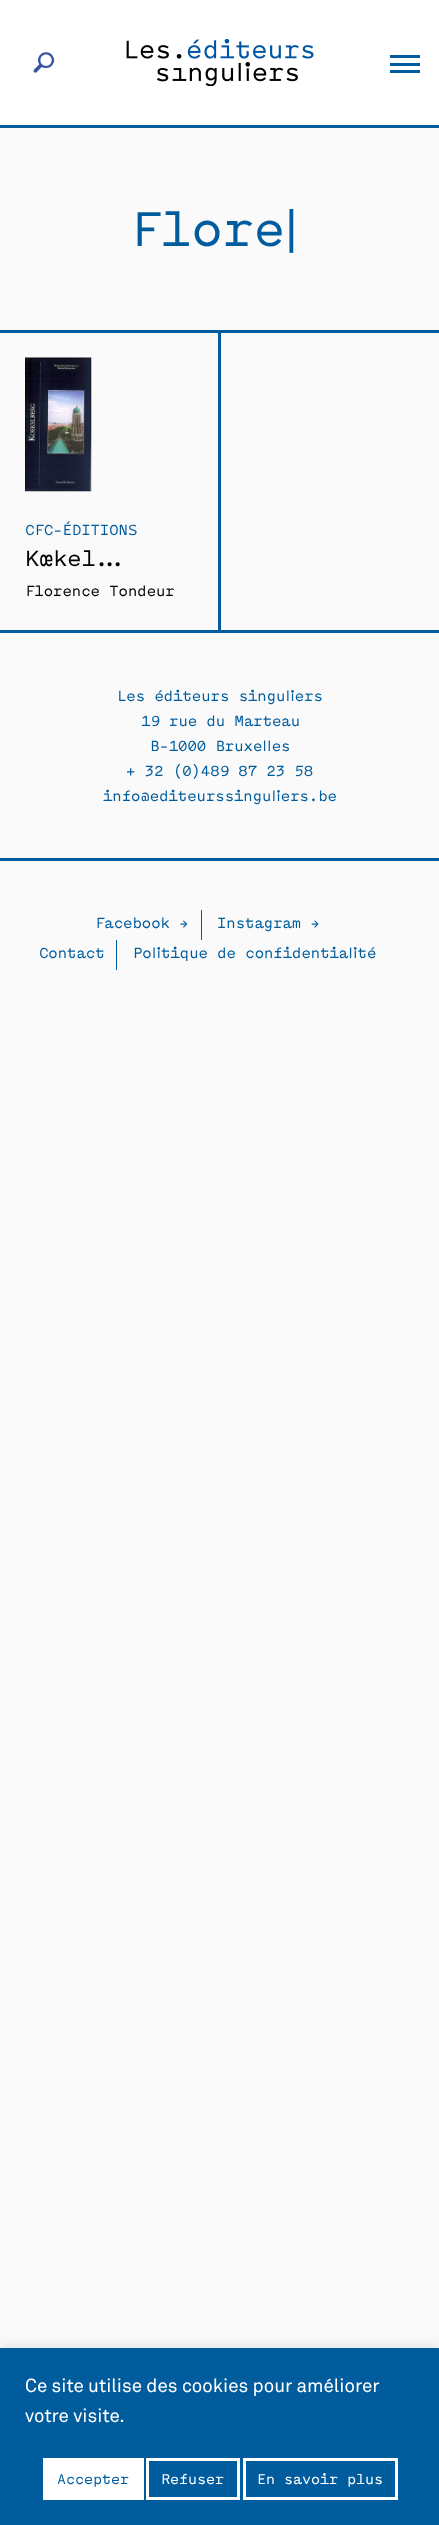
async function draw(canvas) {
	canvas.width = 439;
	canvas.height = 2525;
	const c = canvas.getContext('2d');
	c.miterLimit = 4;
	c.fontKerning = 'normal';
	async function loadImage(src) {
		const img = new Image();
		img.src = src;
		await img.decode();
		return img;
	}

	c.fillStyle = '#fafafa';
	c.fillRect(0, 0, 439, 2525);
	c.fillStyle = '#005c9d';
	c.fillRect(0, 125, 439, 3);
	c.fillStyle = '#fff';
	c.fillRect(0, 0, 439, 125);
	c.drawImage(await loadImage('img1.png'), 126, 39, 188, 47);
	c.drawImage(await loadImage('img2.png'), 33, 52, 22, 21);
	for (const [x, y, w, h, color] of [
		[390, 55, 30, 3, '#005c9d'],
		[390, 63, 30, 3, '#005c9d'],
		[390, 70, 30, 3, '#005c9d'],
		[0, 330, 439, 3, '#005c9d'],
	]) {
		c.fillStyle = color;
		c.fillRect(x, y, w, h);
	}
	c.font = '52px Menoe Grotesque';
	c.fillText('Flore', 129, 246);
	c.font = '52px Roboto';
	c.fillText('|', 285, 246);
	c.fillRect(218, 333, 3, 297);
	c.drawImage(await loadImage('img3.png'), 25, 357, 67, 135);
	c.font = '15.6px Menoe Grotesque';
	c.fillText('CFC-ÉDITIONS', 25, 535);
	c.font = '23.5px Menoe Grotesque';
	c.fillStyle = '#000';
	c.fillText('Koekel…', 25, 566);
	c.font = '15.6px Menoe Grotesque';
	c.fillText('Florence Tondeur', 25, 596);
	c.fillStyle = '#005c9d';
	c.fillRect(0, 630, 439, 3);
	for (const [text, x, y] of [
		['Les éditeurs singuliers', 117, 701],
		['19 rue du Marteau', 141, 726],
		['B-1000 Bruxelles', 150, 751],
		['+ 32 (0)489 87 23 58', 126, 776],
		['info@editeurssinguliers.be', 103, 801],
	]) {
		c.fillText(text, x, y);
	}
	c.fillRect(0, 858, 439, 3);
	c.fillRect(201, 910, 1, 30);
	c.fillText('Facebook →', 95, 928);
	c.fillText('Instagram →', 217, 928);
	c.fillRect(116, 940, 1, 30);
	c.fillText('Contact', 39, 958);
	c.fillText('Politique de confidentialité', 133, 958);
	c.fillStyle = '#acabab4d';
	c.filter = 'blur(6px)';
	c.beginPath();
	c.rect(0, 2346, 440, 178);
	c.fill();
	c.filter = 'none';
	c.fillStyle = '#005c9d';
	c.fillRect(0, 2348, 439, 177);
	c.font = '18.75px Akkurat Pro';
	c.fillStyle = '#fff';
	c.fillText('Ce site utilise des cookies pour améliorer', 25, 2392);
	c.fillText('votre visite.', 25, 2422);
	c.fillRect(43, 2458, 101, 42);
	c.font = '15px Menoe Grotesque';
	c.fillStyle = '#005c9d';
	c.fillText('Accepter', 57, 2484);
	c.strokeStyle = '#fff';
	c.lineWidth = 3;
	c.strokeRect(147.5, 2459.5, 91, 39);
	c.fillStyle = '#fff';
	c.fillText('Refuser', 161, 2484);
	c.strokeRect(244.5, 2459.5, 152, 39);
	c.fillText('En savoir plus', 257, 2484);
}

draw(document.querySelector('canvas'));
